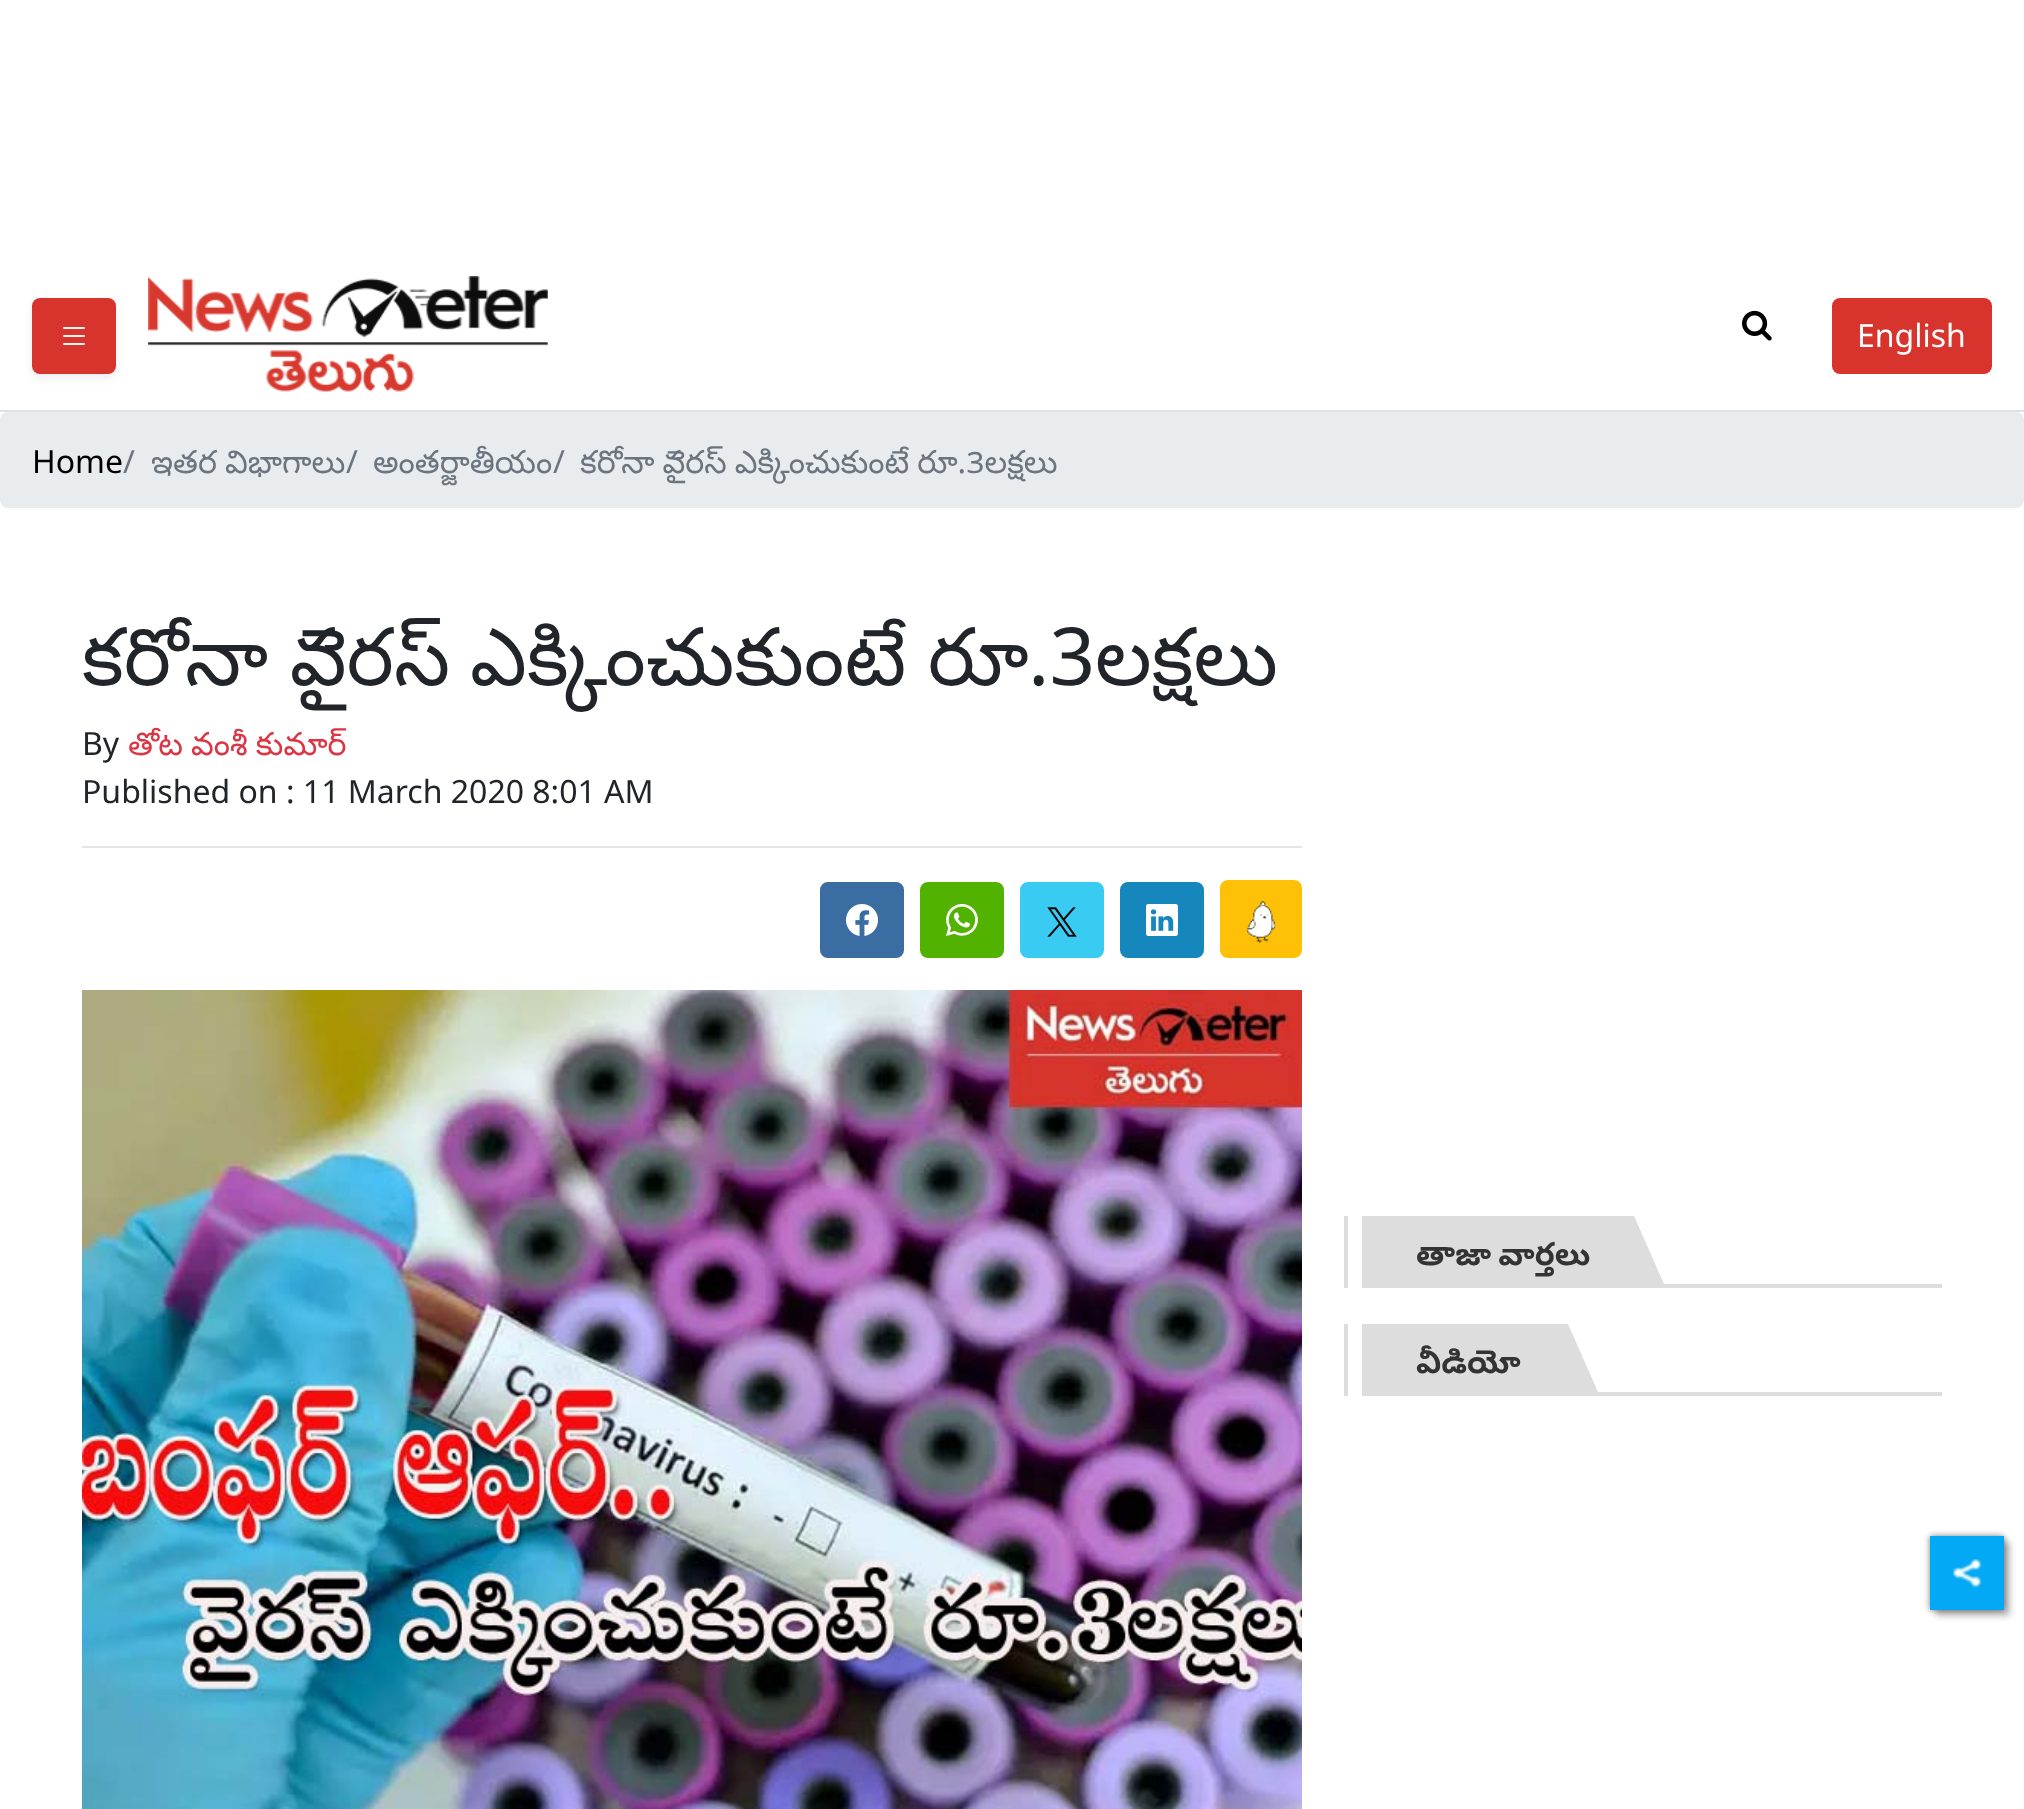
async function draw(canvas) {
	canvas.width = 2024;
	canvas.height = 1809;
	const c = canvas.getContext('2d');
	c.miterLimit = 4;
	c.fontKerning = 'normal';
	async function loadImage(src) {
		const img = new Image();
		img.src = src;
		await img.decode();
		return img;
	}

	c.fillStyle = '#fff';
	c.fillRect(0, 0, 2024, 1809);
	c.fillStyle = '#dee2e6';
	c.fillRect(0, 410, 2024, 2);
	c.fillStyle = '#00000012';
	c.filter = 'blur(4px)';
	c.beginPath();
	c.roundRect(32, 302, 84, 76, 8);
	c.fill();
	c.filter = 'none';
	c.fillStyle = '#d7342d';
	c.beginPath();
	c.roundRect(33, 299, 82, 74, 7);
	c.fill();
	c.strokeStyle = '#d7342d';
	c.lineWidth = 2;
	c.stroke();
	c.drawImage(await loadImage('img1.png'), 63, 327, 22, 18);
	c.drawImage(await loadImage('img2.png'), 148, 276, 400, 116);
	c.drawImage(await loadImage('img3.png'), 1742, 310, 30, 31);
	c.beginPath();
	c.roundRect(1833, 299, 158, 74, 7);
	c.fill();
	c.stroke();
	c.font = '32px Noto Sans';
	c.fillStyle = '#fff';
	c.fillText('English', 1857, 347);
	c.fillStyle = '#e9ecef';
	c.beginPath();
	c.roundRect(0, 412, 2024, 96, 8);
	c.fill();
	c.fillStyle = '#000';
	c.fillText('Home', 32, 473);
	c.fillStyle = '#6c757d';
	c.fillText('/', 123, 473);
	c.wordSpacing = '-1px';
	c.font = '32px Noto Sans Telugu';
	c.fillText('ఇతర విభాగాలు', 151, 473);
	c.wordSpacing = '0px';
	c.font = '32px Noto Sans';
	c.fillText('/', 346, 473);
	c.font = '32px Noto Sans Telugu';
	c.fillText('అంతర్జాతీయం', 373, 473);
	c.font = '32px Noto Sans';
	c.fillText('/', 553, 473);
	c.wordSpacing = '-1px';
	c.font = '32px Noto Sans Telugu';
	c.fillText('కరోనా వైరస్‌ ఎక్కించుకుంటే రూ.3లక్షలు', 580, 473);
	c.font = '80px Noto Sans Telugu';
	c.fillStyle = '#212529';
	c.fillText('కరోనా వైరస్', 82, 685);
	c.fillText('ఎక్కించుకుంటే రూ', 470, 685);
	c.wordSpacing = '0px';
	c.font = '80px Noto Sans';
	c.fillText('.3', 1028, 685);
	c.font = '80px Noto Sans Telugu';
	c.fillText('లక్షలు', 1095, 685);
	c.font = '32px Noto Sans';
	c.fillText('By', 82, 755);
	c.wordSpacing = '-1px';
	c.font = '32px Noto Sans Telugu';
	c.fillStyle = '#dc3545';
	c.fillText('తోట‌ వంశీ కుమార్‌', 128, 755);
	c.wordSpacing = '0px';
	c.font = '32px Noto Sans';
	c.fillStyle = '#212529';
	c.fillText('Published on : 11 March 2020 8:01 AM', 82, 803);
	c.fillStyle = '#e6e6e6';
	c.fillRect(82, 846, 1220, 2);
	c.fillStyle = '#3a6da1';
	c.beginPath();
	c.roundRect(821, 883, 82, 74, 7);
	c.fill();
	c.strokeStyle = '#3a6da1';
	c.stroke();
	c.drawImage(await loadImage('img4.png'), 846, 904, 32, 32);
	c.fillStyle = '#51b200';
	c.beginPath();
	c.roundRect(921, 883, 82, 74, 7);
	c.fill();
	c.strokeStyle = '#51b200';
	c.stroke();
	c.drawImage(await loadImage('img5.png'), 946, 904, 32, 32);
	c.fillStyle = '#39cbf1';
	c.beginPath();
	c.roundRect(1021, 883, 82, 74, 7);
	c.fill();
	c.strokeStyle = '#39cbf1';
	c.stroke();
	c.drawImage(await loadImage('img6.png'), 1047, 907, 30, 30);
	c.fillStyle = '#1587bc';
	c.beginPath();
	c.roundRect(1121, 883, 82, 74, 7);
	c.fill();
	c.strokeStyle = '#1587bc';
	c.stroke();
	c.drawImage(await loadImage('img7.png'), 1146, 904, 32, 32);
	c.fillStyle = '#ffc107';
	c.beginPath();
	c.roundRect(1221, 881, 80, 76, 7);
	c.fill();
	c.strokeStyle = '#ffc107';
	c.stroke();
	c.drawImage(await loadImage('img8.png'), 1246, 901, 30, 42);
	c.drawImage(await loadImage('img9.png'), 82, 990, 1220, 819);
	for (const [x, y, w, h, color] of [
		[1664, 1284, 278, 4, '#ddd'],
		[1362, 1216, 272, 72, '#ddd'],
		[1344, 1216, 4, 72, '#ddd'],
	]) {
		c.fillStyle = color;
		c.fillRect(x, y, w, h);
	}
	c.wordSpacing = '-2px';
	c.font = 'bold 32px Noto Sans Telugu';
	c.fillStyle = '#333';
	c.fillText('తాజా వార్తలు', 1416, 1265);
	c.fillStyle = '#ddd';
	c.beginPath();
	c.moveTo(1634, 1288);
	c.lineTo(1634, 1216);
	c.lineTo(1664, 1284);
	c.lineTo(1664, 1288);
	c.closePath();
	c.fill();
	for (const [x, y, w, h, color] of [
		[1598, 1392, 344, 4, '#ddd'],
		[1362, 1324, 206, 72, '#ddd'],
		[1344, 1324, 4, 72, '#ddd'],
	]) {
		c.fillStyle = color;
		c.fillRect(x, y, w, h);
	}
	c.wordSpacing = '0px';
	c.fillStyle = '#333';
	c.fillText('వీడియో', 1416, 1373);
	c.fillStyle = '#ddd';
	c.beginPath();
	c.moveTo(1568, 1396);
	c.lineTo(1568, 1324);
	c.lineTo(1598, 1392);
	c.lineTo(1598, 1396);
	c.closePath();
	c.fill();
	c.fillStyle = '#00000040';
	c.filter = 'blur(3px)';
	c.beginPath();
	c.rect(1936, 1542, 74, 74);
	c.fill();
	c.filter = 'none';
	c.fillStyle = '#00000080';
	c.filter = 'blur(3px)';
	c.beginPath();
	c.rect(1930, 1536, 74, 74);
	c.fill();
	c.filter = 'none';
	c.fillStyle = '#03a9f4';
	c.fillRect(1930, 1536, 74, 74);
	c.drawImage(await loadImage('img10.png'), 1953, 1559, 29, 29);
}

draw(document.querySelector('canvas'));
